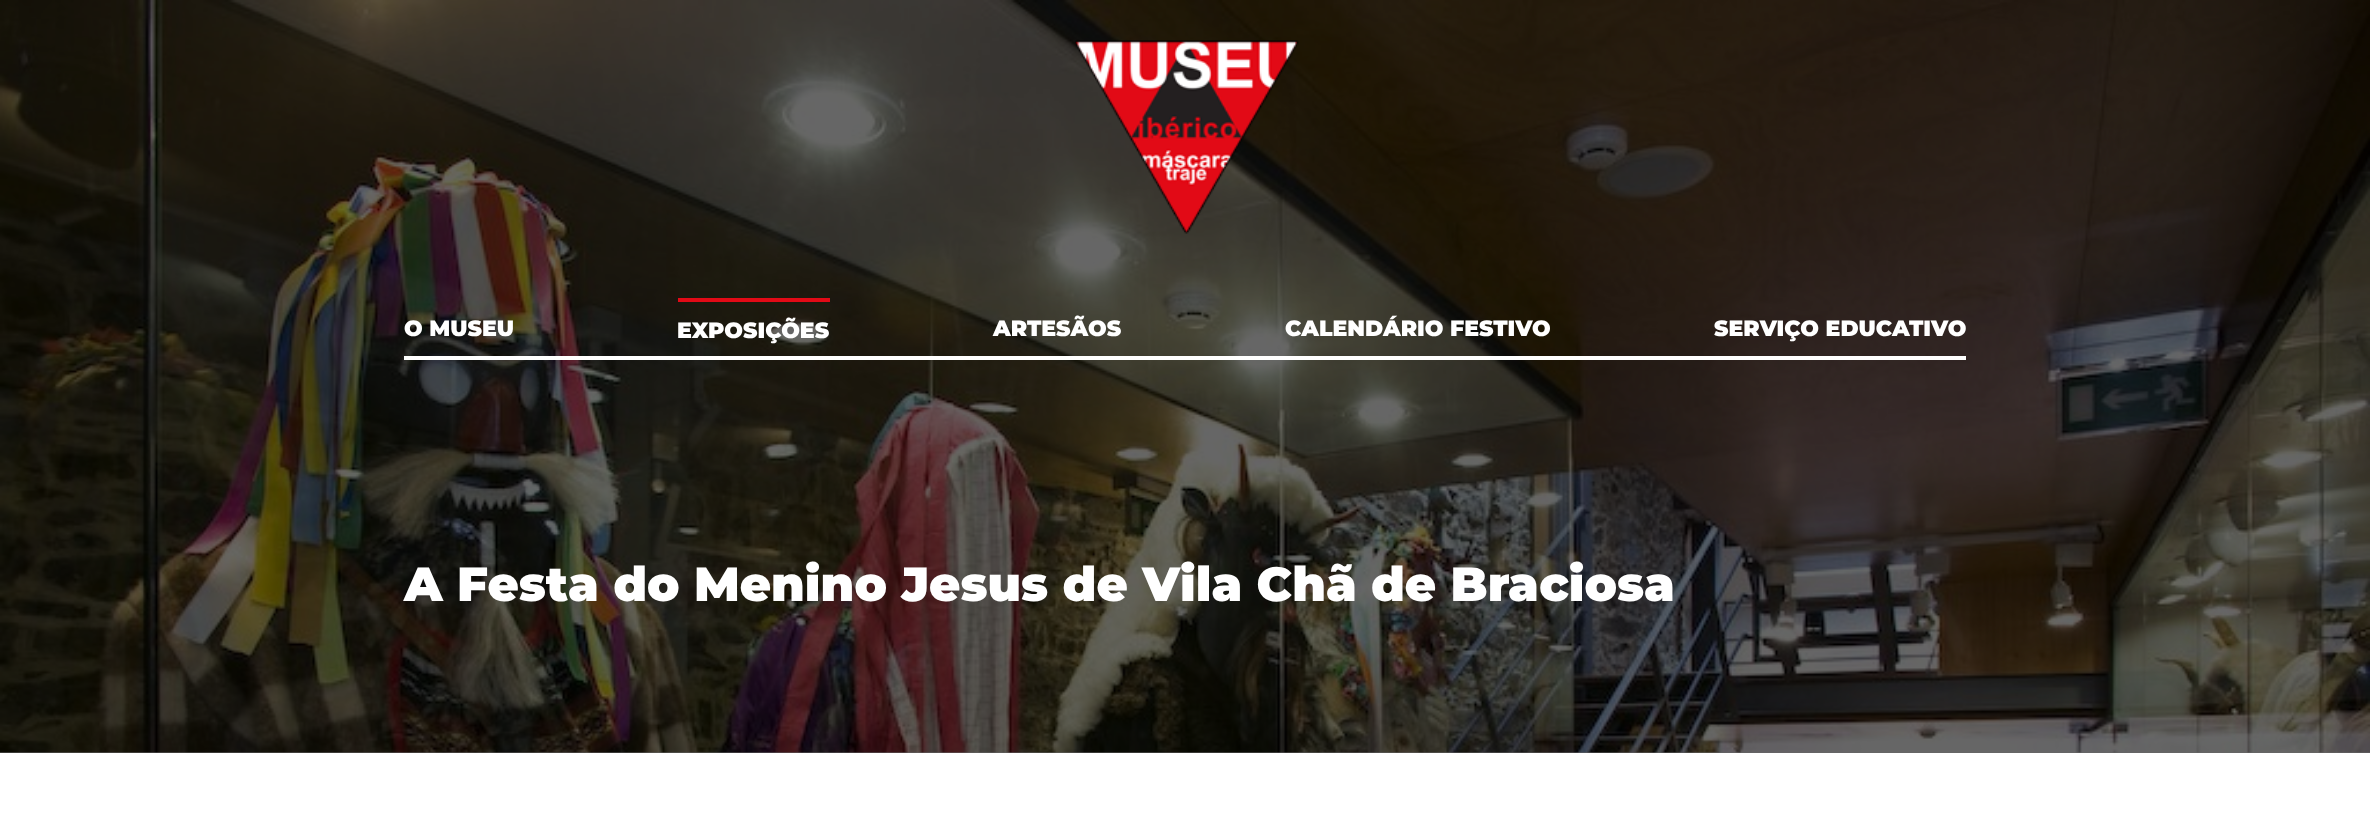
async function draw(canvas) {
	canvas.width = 2370;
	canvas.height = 836;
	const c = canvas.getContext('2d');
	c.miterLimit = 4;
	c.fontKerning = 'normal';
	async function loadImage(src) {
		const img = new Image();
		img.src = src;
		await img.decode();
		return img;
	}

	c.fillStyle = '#fff';
	c.fillRect(0, 0, 2370, 836);
	c.fillStyle = '#666';
	c.fillRect(0, 752, 2370, 1);
	c.drawImage(await loadImage('img1.png'), 0, 0, 2370, 753);
	c.drawImage(await loadImage('img2.png'), 1075, 40, 224, 194);
	c.fillStyle = '#fff';
	c.fillRect(404, 356, 1562, 4);
	c.font = '100 22px Montserrat';
	c.fillText('O MUSEU', 404, 336);
	c.fillStyle = '#e20a16';
	c.fillRect(678, 298, 152, 4);
	c.fillStyle = '#fff';
	for (const [text, x, y] of [
		['EXPOSIÇÕES', 677, 338],
		['ARTESÃOS', 993, 336],
		['CALENDÁRIO FESTIVO', 1285, 336],
		['SERVIÇO EDUCATIVO', 1714, 336],
	]) {
		c.fillText(text, x, y);
	}
	c.font = '100 48px Montserrat';
	c.fillText('A Festa do Menino Jesus de Vila Chã de Braciosa', 404, 601);
}

draw(document.querySelector('canvas'));
